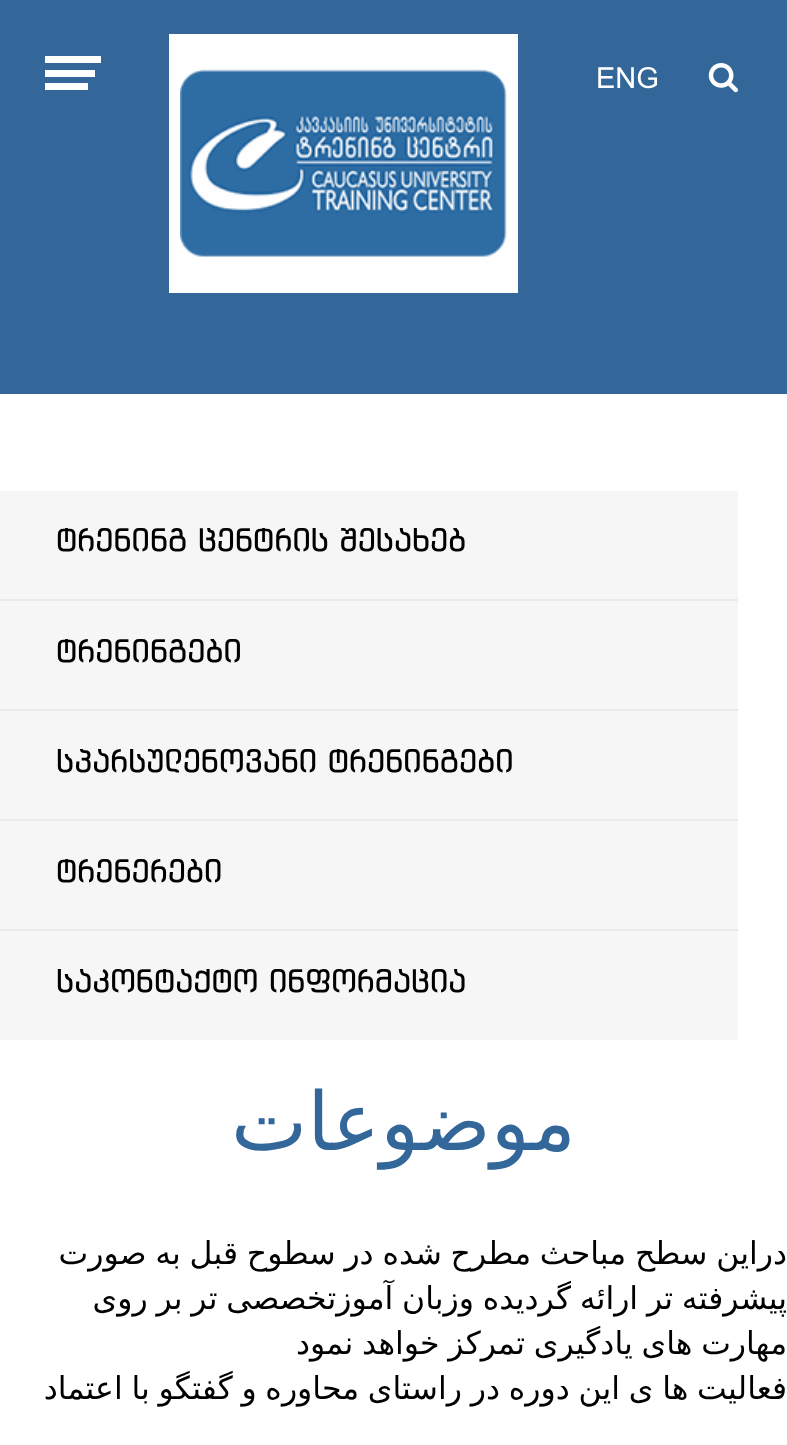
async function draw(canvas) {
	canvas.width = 787;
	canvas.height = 1445;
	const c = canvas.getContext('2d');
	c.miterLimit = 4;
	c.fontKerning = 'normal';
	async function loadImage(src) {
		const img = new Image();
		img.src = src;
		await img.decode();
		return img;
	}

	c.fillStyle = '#369';
	c.fillRect(0, 0, 787, 1445);
	c.drawImage(await loadImage('img1.png'), 708, 63, 30, 30);
	c.font = '29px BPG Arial';
	c.fillStyle = '#fff';
	c.fillText('ENG', 596, 88);
	c.fillRect(169, 34, 349, 259);
	c.drawImage(await loadImage('img2.png'), 180, 69, 327, 188);
	for (const [x, y, w, h, color] of [
		[45, 56, 56, 7, '#fff'],
		[45, 70, 50, 7, '#fff'],
		[45, 83, 43, 7, '#fff'],
		[0, 394, 787, 1051, '#fff'],
		[0, 491, 738, 549, '#f6f6f6'],
		[0, 599, 738, 2, '#eaeaea'],
	]) {
		c.fillStyle = color;
		c.fillRect(x, y, w, h);
	}
	c.font = '31.5px "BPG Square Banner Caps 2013"';
	c.fillStyle = '#000';
	c.fillText('ტრენინგ ცენტრის შესახებ', 56, 551);
	c.fillStyle = '#eaeaea';
	c.fillRect(0, 709, 738, 2);
	c.fillStyle = '#000';
	c.fillText('ტრენინგები', 56, 662);
	c.fillStyle = '#eaeaea';
	c.fillRect(0, 819, 738, 2);
	c.fillStyle = '#000';
	c.fillText('სპარსულენოვანი ტრენინგები', 56, 772);
	c.fillStyle = '#eaeaea';
	c.fillRect(0, 929, 738, 2);
	c.fillStyle = '#000';
	c.fillText('ტრენერები', 56, 882);
	c.fillText('საკონტაქტო ინფორმაცია', 56, 992);
	c.direction = 'rtl';
	c.font = '81px DejaVu Sans';
	c.fillStyle = '#369';
	c.fillText('موضوعات', 576, 1150);
	c.wordSpacing = '-1.25px';
	c.font = '31.5px DejaVu Sans';
	c.fillStyle = '#000';
	for (const [text, x, y] of [
		['دراین سطح مباحث مطرح شده در سطوح قبل به صورت', 787, 1264],
		['پیشرفته تر ارائه گردیده وزبان آموزتخصصی تر بر روی', 787, 1309],
		['مهارت های یادگیری تمرکز خواهد نمود', 787, 1354],
		['فعالیت ها ی این دوره در راستای محاوره و گفتگو با اعتماد', 787, 1399],
	]) {
		c.fillText(text, x, y);
	}
}

draw(document.querySelector('canvas'));
